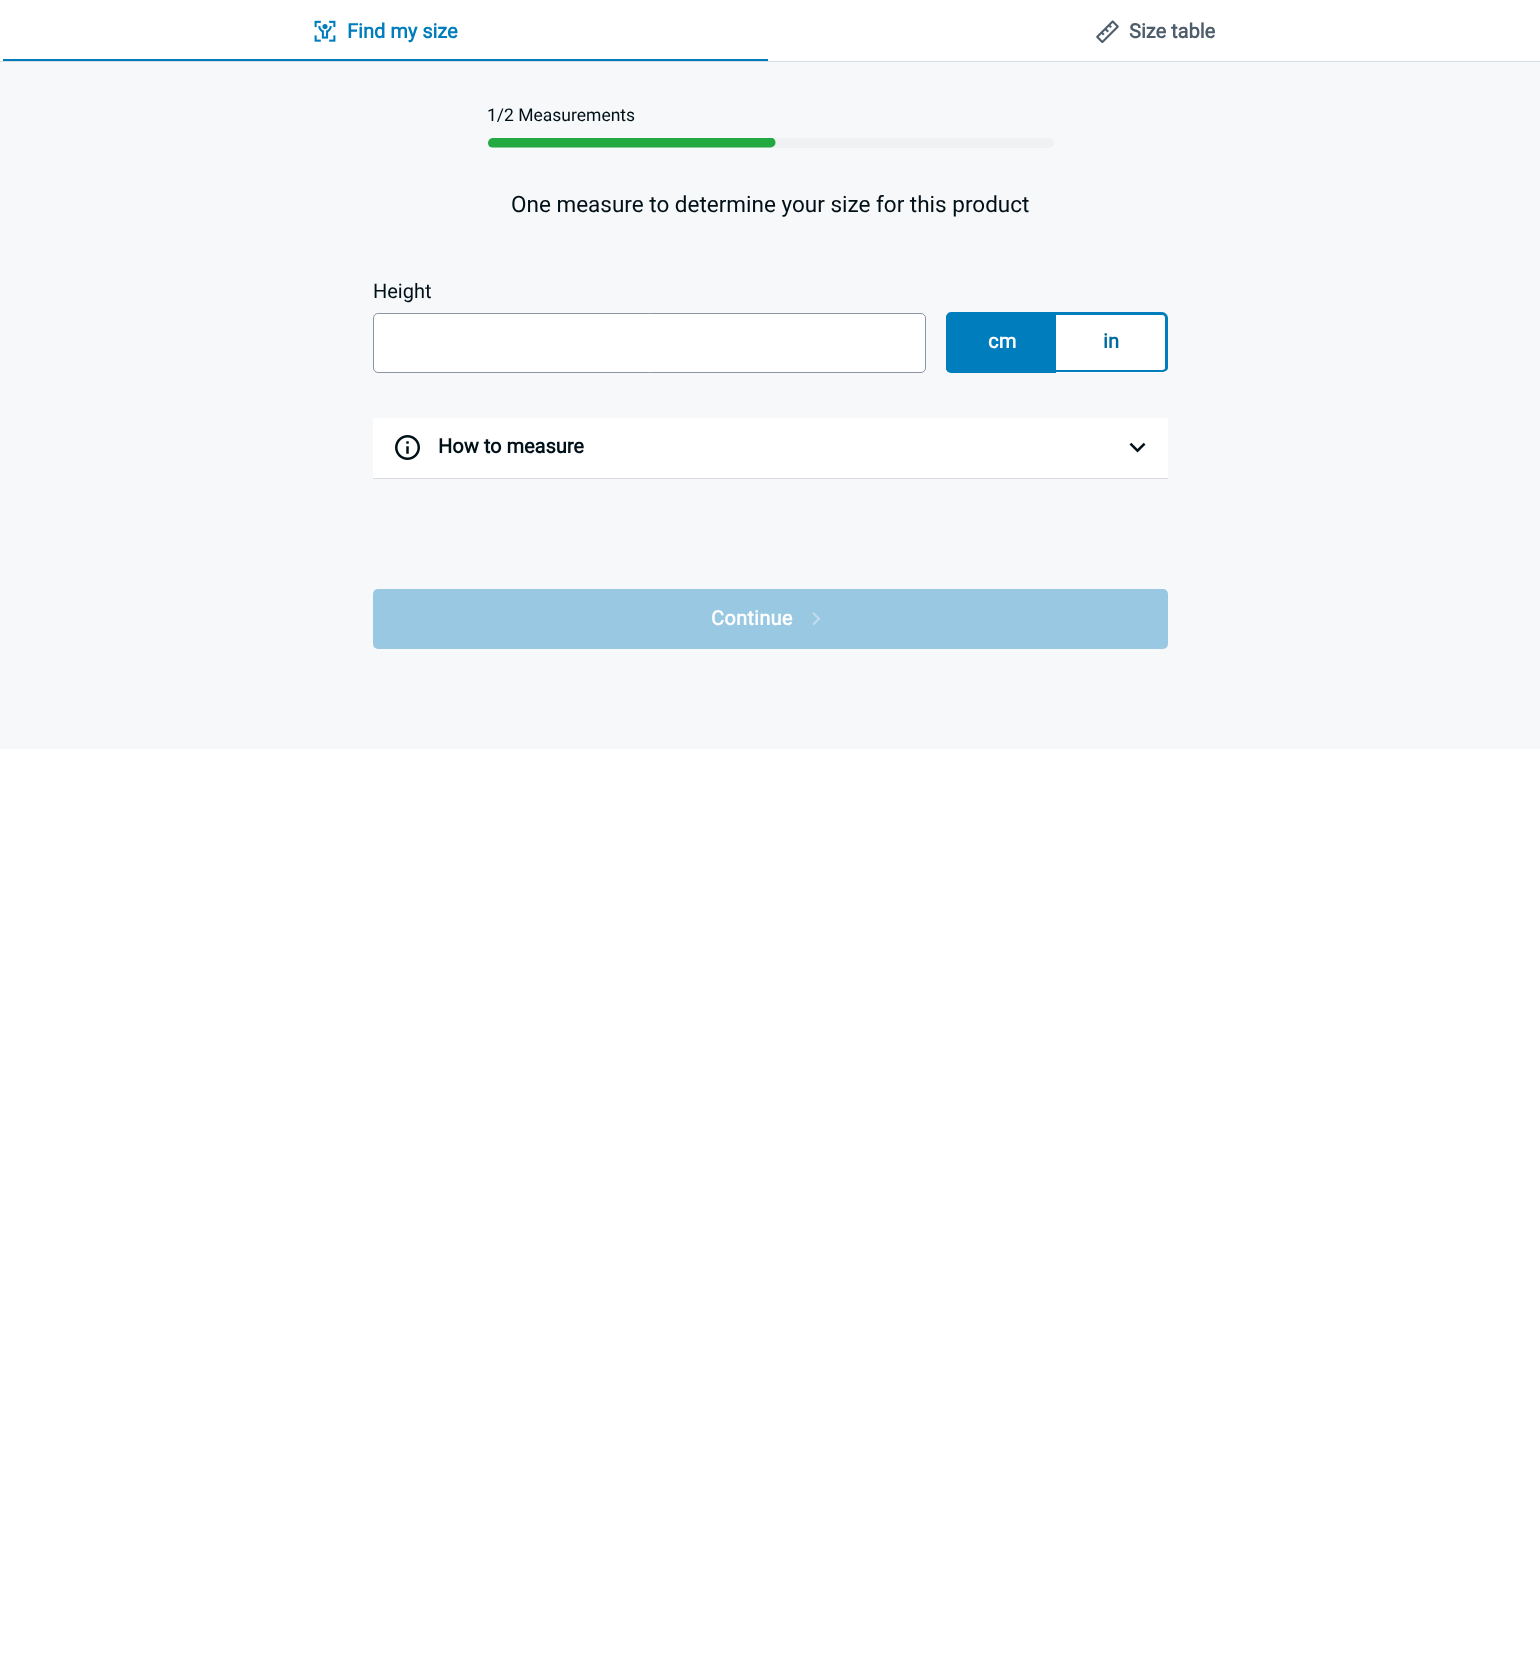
async function draw(canvas) {
	canvas.width = 1540;
	canvas.height = 1680;
	const c = canvas.getContext('2d');
	c.miterLimit = 4;
	c.fontKerning = 'normal';
	async function loadImage(src) {
		const img = new Image();
		img.src = src;
		await img.decode();
		return img;
	}

	c.fillStyle = '#fff';
	c.fillRect(0, 0, 1540, 1680);
	c.fillStyle = '#f7f8f9';
	c.fillRect(0, 62, 1540, 687);
	c.fillStyle = '#007dbc';
	c.fillRect(3, 59, 765, 2);
	c.drawImage(await loadImage('img1.png'), 314, 20, 22, 22);
	c.font = 'bold 20px Roboto';
	c.fillText('Find my size', 347, 38);
	c.drawImage(await loadImage('img2.png'), 1096, 20, 23, 23);
	c.fillStyle = '#4e5d6b';
	c.fillText('Size table', 1129, 38);
	c.fillStyle = '#d9dde1';
	c.fillRect(0, 61, 1540, 1);
	c.font = '17.5px Roboto';
	c.fillStyle = '#001018';
	c.fillText('1/2 Measurements', 487, 121);
	c.fillStyle = '#eff1f3';
	c.beginPath();
	c.roundRect(488, 138, 566, 10, 5);
	c.fill();
	c.save();
	c.beginPath();
	c.roundRect(488, 138, 566, 10, 5);
	c.clip();
	c.beginPath();
	c.moveTo(204.5, 142.5);
	c.lineTo(770.5, 142.5);
	c.strokeStyle = '#23a942';
	c.lineWidth = 10;
	c.lineCap = 'round';
	c.stroke();
	c.restore();
	c.font = '22.5px Roboto';
	c.fillStyle = '#001018';
	c.fillText('One measure to determine your size for this product', 511, 212);
	c.font = '20px Roboto';
	c.fillText('Height', 373, 298);
	c.fillStyle = '#fff';
	c.beginPath();
	c.roundRect(373.5, 313.5, 552, 59, 4.5);
	c.fill();
	c.strokeStyle = '#8c96a2';
	c.stroke();
	c.fillStyle = '#007dbc';
	c.beginPath();
	c.roundRect(946, 313, 110, 60, [5, 0, 0, 5]);
	c.fill();
	c.beginPath();
	c.moveTo(951, 312);
	c.lineTo(1056, 312);
	c.lineTo(1056, 372);
	c.lineTo(951, 372);
	c.bezierCurveTo(948, 372, 946, 370, 946, 368);
	c.lineTo(946, 318);
	c.bezierCurveTo(946, 315, 948, 312, 951, 312);
	c.closePath();
	c.moveTo(951, 315);
	c.lineTo(1056, 315);
	c.lineTo(1056, 370);
	c.lineTo(951, 370);
	c.bezierCurveTo(950, 370, 949, 369, 949, 368);
	c.lineTo(949, 318);
	c.bezierCurveTo(949, 316, 950, 315, 951, 315);
	c.closePath();
	c.fill('evenodd');
	c.letterSpacing = '0.25px';
	c.font = 'bold 20px Roboto';
	c.fillStyle = '#fff';
	c.fillText('cm', 988, 348);
	c.beginPath();
	c.roundRect(1056, 313, 112, 60, [0, 5, 5, 0]);
	c.fill();
	c.fillStyle = '#007dbc';
	c.beginPath();
	c.moveTo(1056, 312);
	c.lineTo(1162, 312);
	c.bezierCurveTo(1165, 312, 1168, 315, 1168, 318);
	c.lineTo(1168, 368);
	c.bezierCurveTo(1168, 370, 1165, 372, 1162, 372);
	c.lineTo(1056, 372);
	c.closePath();
	c.moveTo(1056, 315);
	c.lineTo(1162, 315);
	c.bezierCurveTo(1164, 315, 1165, 316, 1165, 318);
	c.lineTo(1165, 368);
	c.bezierCurveTo(1165, 369, 1164, 370, 1162, 370);
	c.lineTo(1056, 370);
	c.closePath();
	c.fill('evenodd');
	c.fillStyle = '#00699d';
	c.fillText('in', 1103, 348);
	c.fillStyle = '#fff';
	c.fillRect(373, 418, 795, 60);
	c.fillStyle = '#d9dde1';
	c.fillRect(373, 478, 795, 1);
	c.drawImage(await loadImage('img3.png'), 395, 435, 25, 25);
	c.letterSpacing = '0px';
	c.fillStyle = '#001018';
	c.fillText('How to measure', 438, 453);
	c.drawImage(await loadImage('img4.png'), 1129, 442, 17, 11);
	c.fillStyle = '#99c9e2';
	c.beginPath();
	c.roundRect(373, 589, 795, 60, 5);
	c.fill();
	c.letterSpacing = '0.25px';
	c.fillStyle = '#fff';
	c.fillText('Continue', 711, 625);
	c.drawImage(await loadImage('img5.png'), 812, 612, 9, 14);
}

draw(document.querySelector('canvas'));
